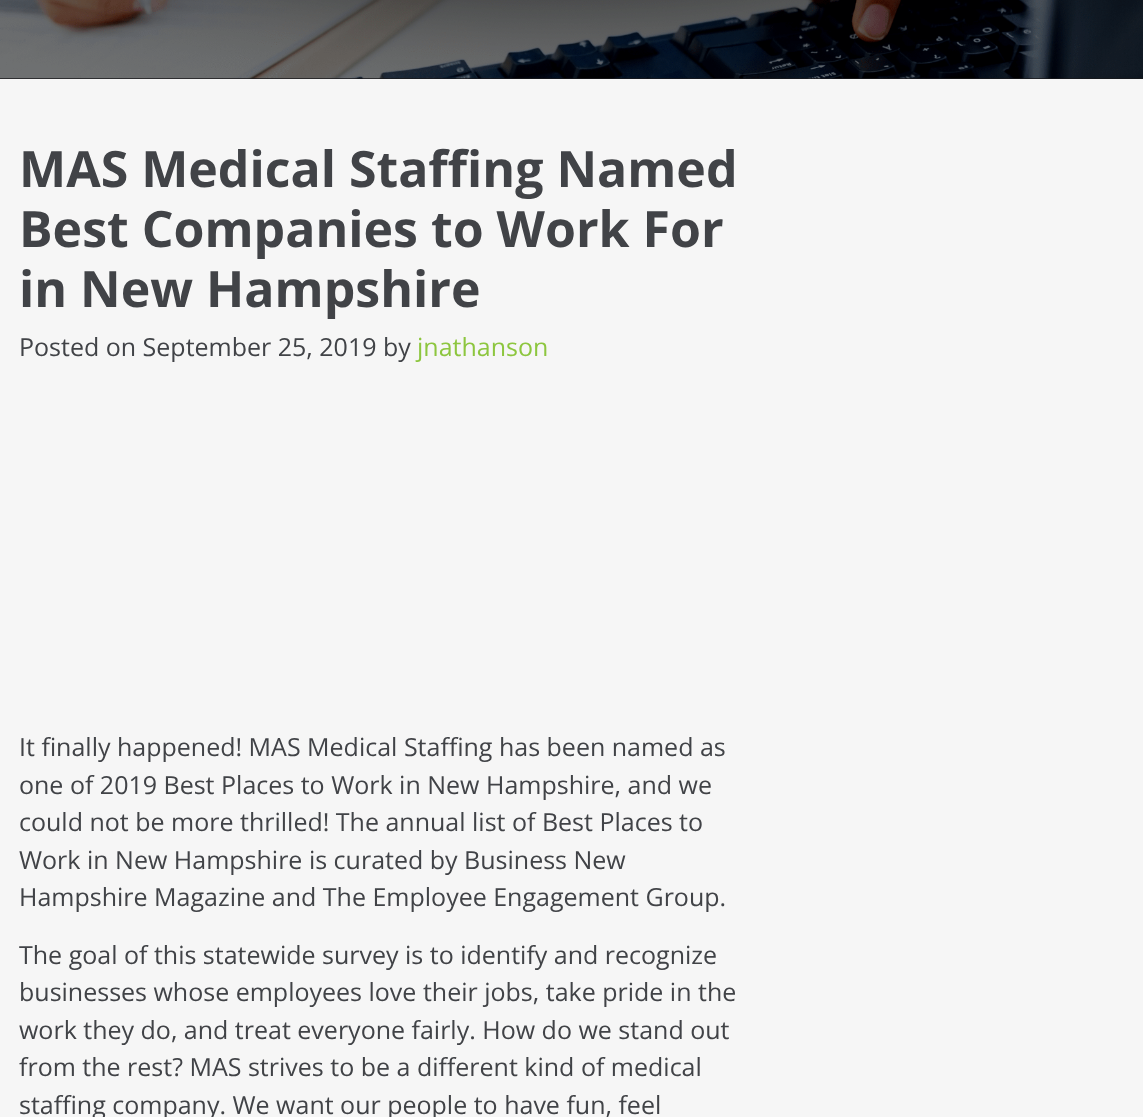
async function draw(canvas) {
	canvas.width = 1143;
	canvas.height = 1117;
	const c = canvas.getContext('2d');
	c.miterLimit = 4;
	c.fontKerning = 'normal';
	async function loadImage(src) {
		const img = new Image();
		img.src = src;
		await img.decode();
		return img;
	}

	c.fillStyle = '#f6f6f6';
	c.fillRect(0, 0, 1143, 1117);
	c.fillStyle = '#18191b';
	c.fillRect(0, 78, 1143, 1);
	c.drawImage(await loadImage('img1.png'), 0, 0, 1143, 79);
	c.font = 'bold 50px Open Sans';
	c.fillStyle = '#414347';
	for (const [text, x, y] of [
		['MAS Medical Staffing Named', 19, 187],
		['Best Companies to Work For', 19, 247],
		['in New Hampshire', 19, 307],
	]) {
		c.fillText(text, x, y);
	}
	c.font = '25px Open Sans';
	c.fillText('Posted on September 25, 2019 by', 19, 356);
	c.fillStyle = '#8dc63f';
	c.fillText('jnathanson', 417, 356);
	c.fillStyle = '#414347';
	for (const [text, x, y] of [
		['It finally happened! MAS Medical Staffing has been named as', 19, 756],
		['one of 2019 Best Places to Work in New Hampshire, and we', 19, 794],
		['could not be more thrilled! The annual list of Best Places to', 19, 831],
		['Work in New Hampshire is curated by Business New', 19, 869],
		['Hampshire Magazine and The Employee Engagement Group.', 19, 906],
		['The goal of this statewide survey is to identify and recognize', 19, 964],
		['businesses whose employees love their jobs, take pride in the', 19, 1001],
		['work they do, and treat everyone fairly. How do we stand out', 19, 1039],
		['from the rest? MAS strives to be a different kind of medical', 19, 1076],
		['staffing company. We want our people to have fun, feel', 19, 1114],
	]) {
		c.fillText(text, x, y);
	}
}

draw(document.querySelector('canvas'));
